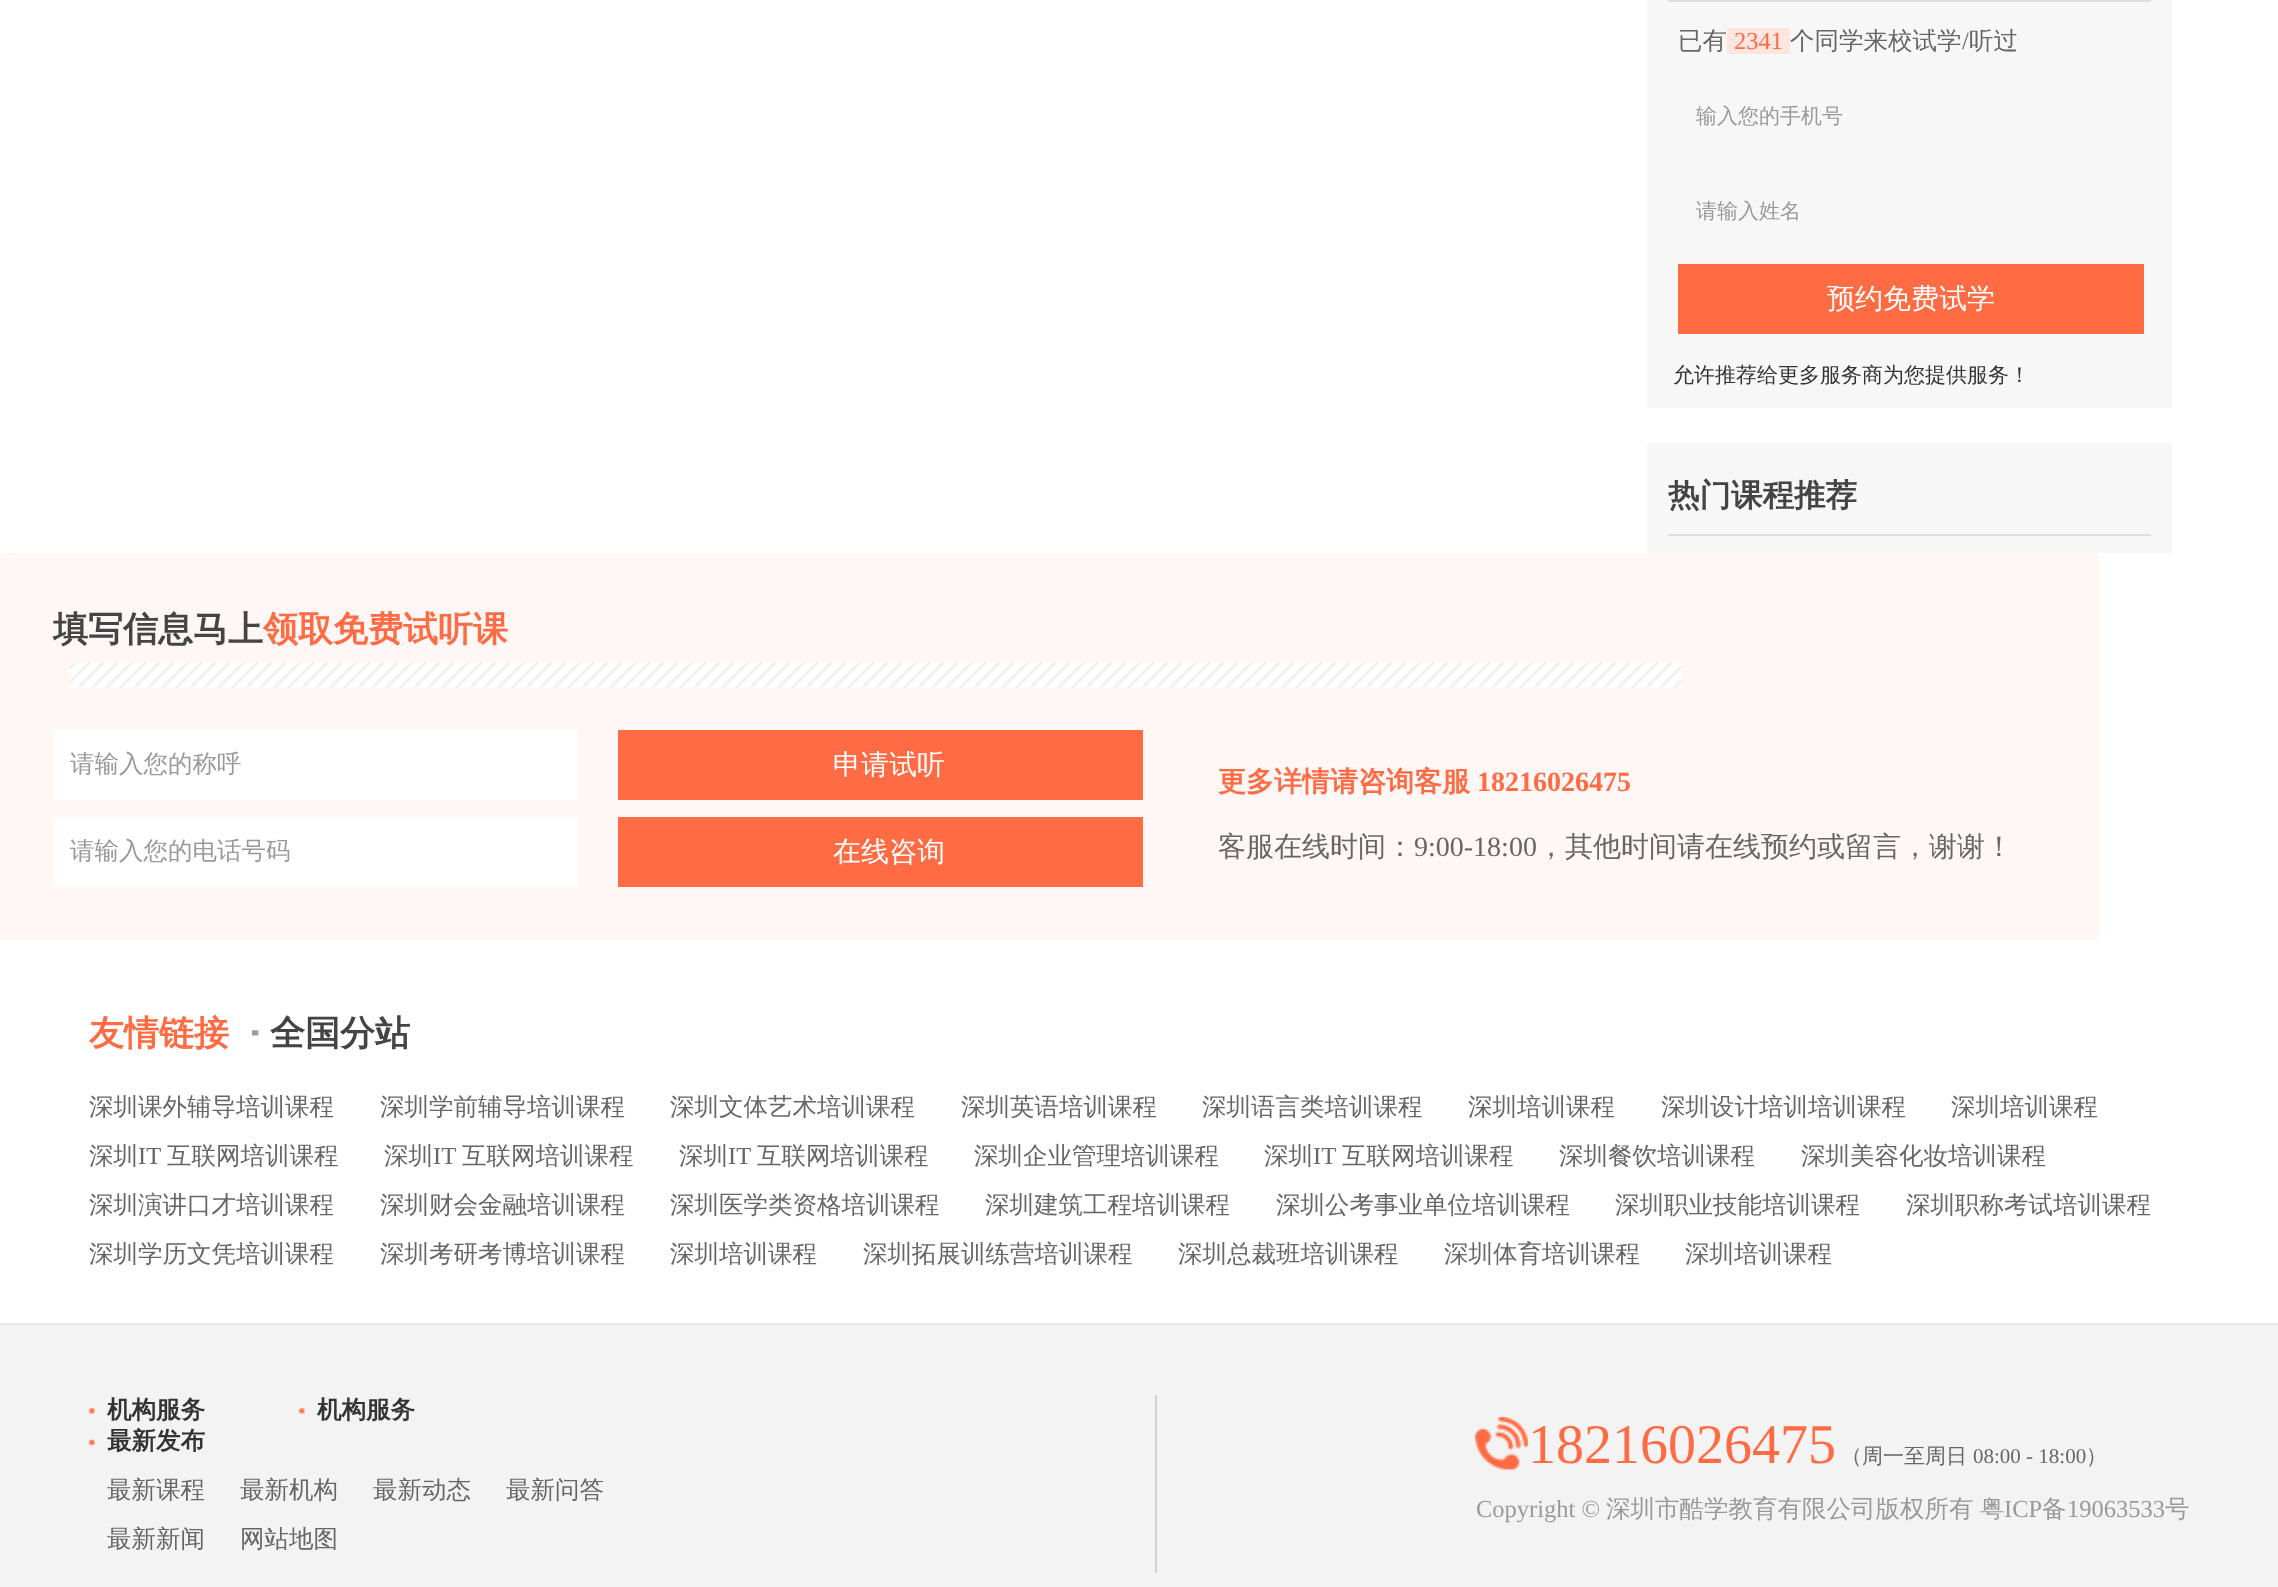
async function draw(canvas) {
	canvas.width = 2278;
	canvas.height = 1587;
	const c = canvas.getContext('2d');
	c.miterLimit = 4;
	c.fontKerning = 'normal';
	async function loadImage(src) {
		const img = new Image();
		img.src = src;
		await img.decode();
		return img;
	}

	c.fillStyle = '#fff';
	c.fillRect(0, 0, 2278, 1587);
	c.fillStyle = '#f7f7f7';
	c.fillRect(1647, 0, 525, 408);
	c.fillStyle = '#ddd';
	c.fillRect(1668, 0, 483, 2);
	c.font = '500 24.5px WenQuanYi Zen Hei';
	c.fillStyle = '#666';
	c.fillText('已有', 1678, 49);
	c.fillStyle = '#fee6df';
	c.fillRect(1727, 28, 63, 26);
	c.font = '24.5px Liberation Serif';
	c.fillStyle = '#ff6c44';
	c.fillText('2341', 1734, 49);
	c.font = '500 24.5px WenQuanYi Zen Hei';
	c.fillStyle = '#666';
	c.fillText('个同学来校试学', 1790, 49);
	c.font = '24.5px Liberation Serif';
	c.fillText('/', 1962, 49);
	c.font = '500 24.5px WenQuanYi Zen Hei';
	c.fillText('听过', 1969, 49);
	c.font = '500 21px WenQuanYi Zen Hei';
	c.fillStyle = '#999';
	c.fillText('输入您的手机号', 1696, 123);
	c.fillText('请输入姓名', 1696, 218);
	c.fillStyle = '#ff6c44';
	c.fillRect(1678, 264, 466, 70);
	c.font = '500 28px WenQuanYi Zen Hei';
	c.fillStyle = '#fff';
	c.fillText('预约免费试学', 1827, 308);
	c.font = '500 21px WenQuanYi Zen Hei';
	c.fillStyle = '#333';
	c.fillText('允许推荐给更多服务商为您提供服务！', 1673, 382);
	c.fillStyle = '#f7f7f7';
	c.fillRect(1647, 443, 525, 110);
	c.fillStyle = '#ddd';
	c.fillRect(1668, 534, 483, 2);
	c.font = 'bold 31.5px WenQuanYi Zen Hei';
	c.fillStyle = '#444';
	c.fillText('热门课程推荐', 1668, 506);
	c.fillStyle = '#fff7f5';
	c.beginPath();
	c.roundRect(0, 553, 2100, 387, 5);
	c.fill();
	c.font = 'bold 35px WenQuanYi Zen Hei';
	c.fillStyle = '#444';
	c.fillText('填写信息马上', 53, 641);
	c.fillStyle = '#ff6c44';
	c.fillText('领取免费试听课', 263, 641);
	c.drawImage(await loadImage('img1.png'), 70, 662, 1612, 26);
	c.fillStyle = '#fff';
	c.fillRect(53, 730, 525, 70);
	c.font = '500 24.5px WenQuanYi Zen Hei';
	c.fillStyle = '#999';
	c.fillText('请输入您的称呼', 70, 772);
	c.fillStyle = '#ff6c44';
	c.fillRect(618, 730, 525, 70);
	c.font = '500 28px WenQuanYi Zen Hei';
	c.fillStyle = '#fff';
	c.fillText('申请试听', 833, 774);
	c.fillRect(53, 817, 525, 70);
	c.font = '500 24.5px WenQuanYi Zen Hei';
	c.fillStyle = '#999';
	c.fillText('请输入您的电话号码', 70, 859);
	c.fillStyle = '#ff6c44';
	c.fillRect(618, 817, 525, 70);
	c.font = '500 28px WenQuanYi Zen Hei';
	c.fillStyle = '#fff';
	c.fillText('在线咨询', 833, 861);
	c.font = 'bold 28px WenQuanYi Zen Hei';
	c.fillStyle = '#ff6c44';
	c.fillText('更多详情请咨询客服', 1218, 791);
	c.font = 'bold 28px Liberation Serif';
	c.fillText('18216026475', 1477, 791);
	c.font = '500 28px WenQuanYi Zen Hei';
	c.fillStyle = '#666';
	c.fillText('客服在线时间：', 1218, 856);
	c.font = '28px Liberation Serif';
	c.fillText('9:00-18:00', 1414, 856);
	c.font = '500 28px WenQuanYi Zen Hei';
	c.fillText('，其他时间请在线预约或留言，谢谢！', 1537, 856);
	c.font = 'bold 35px WenQuanYi Zen Hei';
	c.fillStyle = '#ff6c44';
	c.fillText('友情链接', 89, 1045);
	c.drawImage(await loadImage('img2.png'), 252, 1030, 7, 6);
	c.fillStyle = '#444';
	c.fillText('全国分站', 270, 1045);
	c.font = '500 24.5px WenQuanYi Zen Hei';
	c.fillStyle = '#666';
	for (const [text, x, y] of [
		['深圳课外辅导培训课程', 89, 1115],
		['深圳学前辅导培训课程', 380, 1115],
		['深圳文体艺术培训课程', 670, 1115],
		['深圳英语培训课程', 961, 1115],
		['深圳语言类培训课程', 1202, 1115],
		['深圳培训课程', 1468, 1115],
		['深圳设计培训培训课程', 1661, 1115],
		['深圳培训课程', 1951, 1115],
		['深圳', 89, 1164],
	]) {
		c.fillText(text, x, y);
	}
	c.font = '24.5px Liberation Serif';
	c.fillText('IT', 138, 1164);
	c.font = '500 24.5px WenQuanYi Zen Hei';
	c.fillText('互联网培训课程', 167, 1164);
	c.fillText('深圳', 384, 1164);
	c.font = '24.5px Liberation Serif';
	c.fillText('IT', 433, 1164);
	c.font = '500 24.5px WenQuanYi Zen Hei';
	c.fillText('互联网培训课程', 462, 1164);
	c.fillText('深圳', 679, 1164);
	c.font = '24.5px Liberation Serif';
	c.fillText('IT', 728, 1164);
	c.font = '500 24.5px WenQuanYi Zen Hei';
	for (const [text, x, y] of [
		['互联网培训课程', 757, 1164],
		['深圳企业管理培训课程', 974, 1164],
		['深圳', 1264, 1164],
	]) {
		c.fillText(text, x, y);
	}
	c.font = '24.5px Liberation Serif';
	c.fillText('IT', 1313, 1164);
	c.font = '500 24.5px WenQuanYi Zen Hei';
	for (const [text, x, y] of [
		['互联网培训课程', 1342, 1164],
		['深圳餐饮培训课程', 1559, 1164],
		['深圳美容化妆培训课程', 1801, 1164],
		['深圳演讲口才培训课程', 89, 1213],
		['深圳财会金融培训课程', 380, 1213],
		['深圳医学类资格培训课程', 670, 1213],
		['深圳建筑工程培训课程', 985, 1213],
		['深圳公考事业单位培训课程', 1276, 1213],
		['深圳职业技能培训课程', 1615, 1213],
		['深圳职称考试培训课程', 1906, 1213],
		['深圳学历文凭培训课程', 89, 1262],
		['深圳考研考博培训课程', 380, 1262],
		['深圳培训课程', 670, 1262],
		['深圳拓展训练营培训课程', 863, 1262],
		['深圳总裁班培训课程', 1178, 1262],
		['深圳体育培训课程', 1444, 1262],
		['深圳培训课程', 1685, 1262],
	]) {
		c.fillText(text, x, y);
	}
	for (const [x, y, w, h, color] of [
		[0, 1325, 2278, 262, '#f3f3f3'],
		[0, 1323, 2278, 2, '#e6e6e6'],
		[1155, 1395, 2, 178, '#d2d2d2'],
	]) {
		c.fillStyle = color;
		c.fillRect(x, y, w, h);
	}
	c.drawImage(await loadImage('img3.png'), 89, 1408, 6, 6);
	c.font = 'bold 24.5px WenQuanYi Zen Hei';
	c.fillStyle = '#333';
	c.fillText('机构服务', 107, 1418);
	c.drawImage(await loadImage('img3.png'), 299, 1408, 6, 6);
	c.fillText('机构服务', 317, 1418);
	c.drawImage(await loadImage('img4.png'), 89, 1439, 6, 6);
	c.fillText('最新发布', 107, 1449);
	c.font = '500 24.5px WenQuanYi Zen Hei';
	c.fillStyle = '#666';
	for (const [text, x, y] of [
		['最新课程', 107, 1498],
		['最新机构', 240, 1498],
		['最新动态', 373, 1498],
		['最新问答', 506, 1498],
		['最新新闻', 107, 1547],
		['网站地图', 240, 1547],
	]) {
		c.fillText(text, x, y);
	}
	c.drawImage(await loadImage('img5.png'), 1475, 1417, 53, 53);
	c.font = '56px Liberation Serif';
	c.fillStyle = '#ff6c44';
	c.fillText('18216026475', 1528, 1463);
	c.font = '500 21px WenQuanYi Zen Hei';
	c.fillStyle = '#666';
	c.fillText('（周一至周日', 1841, 1463);
	c.font = '21px Liberation Serif';
	c.fillText('08:00 - 18:00', 1973, 1463);
	c.font = '500 21px WenQuanYi Zen Hei';
	c.fillText('）', 2086, 1463);
	c.font = '24.5px Liberation Serif';
	c.fillStyle = '#999';
	c.fillText('Copyright ©', 1476, 1517);
	c.font = '500 24.5px WenQuanYi Zen Hei';
	c.fillText('深圳市酷学教育有限公司版权所有', 1606, 1517);
	c.fillText('粤', 1980, 1517);
	c.font = '24.5px Liberation Serif';
	c.fillText('ICP', 2004, 1517);
	c.font = '500 24.5px WenQuanYi Zen Hei';
	c.fillText('备', 2042, 1517);
	c.font = '24.5px Liberation Serif';
	c.fillText('19063533', 2067, 1517);
	c.font = '500 24.5px WenQuanYi Zen Hei';
	c.fillText('号', 2165, 1517);
}

draw(document.querySelector('canvas'));
